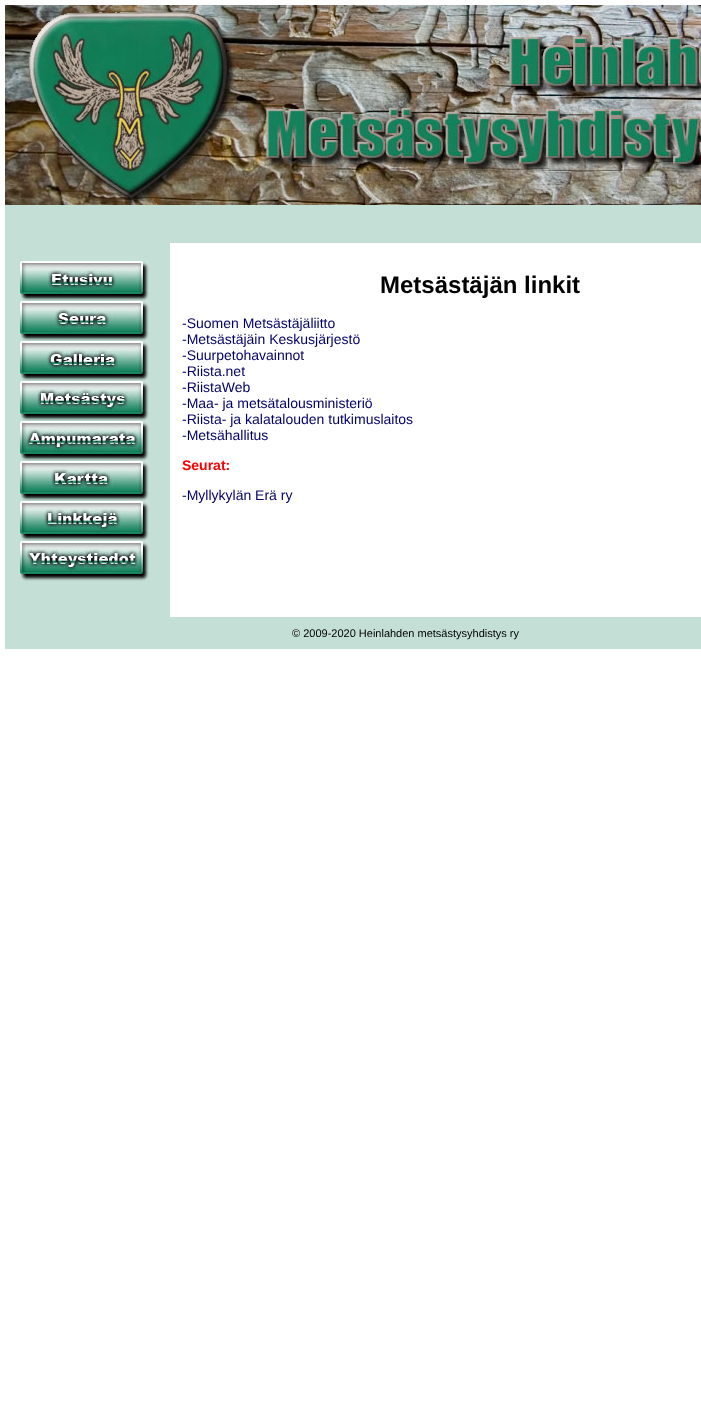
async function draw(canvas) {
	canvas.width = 701;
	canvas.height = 1422;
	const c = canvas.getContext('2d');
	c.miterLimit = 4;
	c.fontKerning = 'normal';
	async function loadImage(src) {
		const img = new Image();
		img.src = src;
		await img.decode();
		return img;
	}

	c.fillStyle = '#fff';
	c.fillRect(0, 0, 701, 1422);
	c.drawImage(await loadImage('img1.png'), 5, 5, 696, 200);
	c.fillStyle = '#c4dfd6';
	c.fillRect(5, 205, 696, 444);
	c.drawImage(await loadImage('img2.png'), 20, 261, 129, 40);
	c.drawImage(await loadImage('img3.png'), 20, 301, 129, 40);
	c.drawImage(await loadImage('img4.png'), 20, 341, 129, 40);
	c.drawImage(await loadImage('img5.png'), 20, 381, 129, 40);
	c.drawImage(await loadImage('img6.png'), 20, 421, 129, 40);
	c.drawImage(await loadImage('img7.png'), 20, 461, 129, 40);
	c.drawImage(await loadImage('img8.png'), 20, 501, 129, 40);
	c.drawImage(await loadImage('img9.png'), 20, 541, 129, 40);
	c.fillStyle = '#fff';
	c.fillRect(170, 243, 531, 374);
	c.font = 'bold 24px Liberation Sans';
	c.fillStyle = '#000';
	c.fillText('Metsästäjän linkit', 380, 293);
	c.font = '14px Liberation Sans';
	c.fillStyle = '#006';
	for (const [text, x, y] of [
		['-Suomen Metsästäjäliitto', 182, 328],
		['-Metsästäjäin Keskusjärjestö', 182, 344],
		['-Suurpetohavainnot', 182, 360],
		['-Riista.net', 182, 376],
		['-RiistaWeb', 182, 392],
		['-Maa- ja metsätalousministeriö', 182, 408],
		['-Riista- ja kalatalouden tutkimuslaitos', 182, 424],
		['-Metsähallitus', 182, 440],
	]) {
		c.fillText(text, x, y);
	}
	c.font = 'bold 14px Liberation Sans';
	c.fillStyle = '#f00';
	c.fillText('Seurat:', 182, 470);
	c.font = '14px Liberation Sans';
	c.fillStyle = '#006';
	c.fillText('-Myllykylän Erä ry', 182, 500);
	c.font = '11px Liberation Sans';
	c.fillStyle = '#000';
	c.fillText('© 2009-2020 Heinlahden metsästysyhdistys ry', 292, 637);
}

draw(document.querySelector('canvas'));
